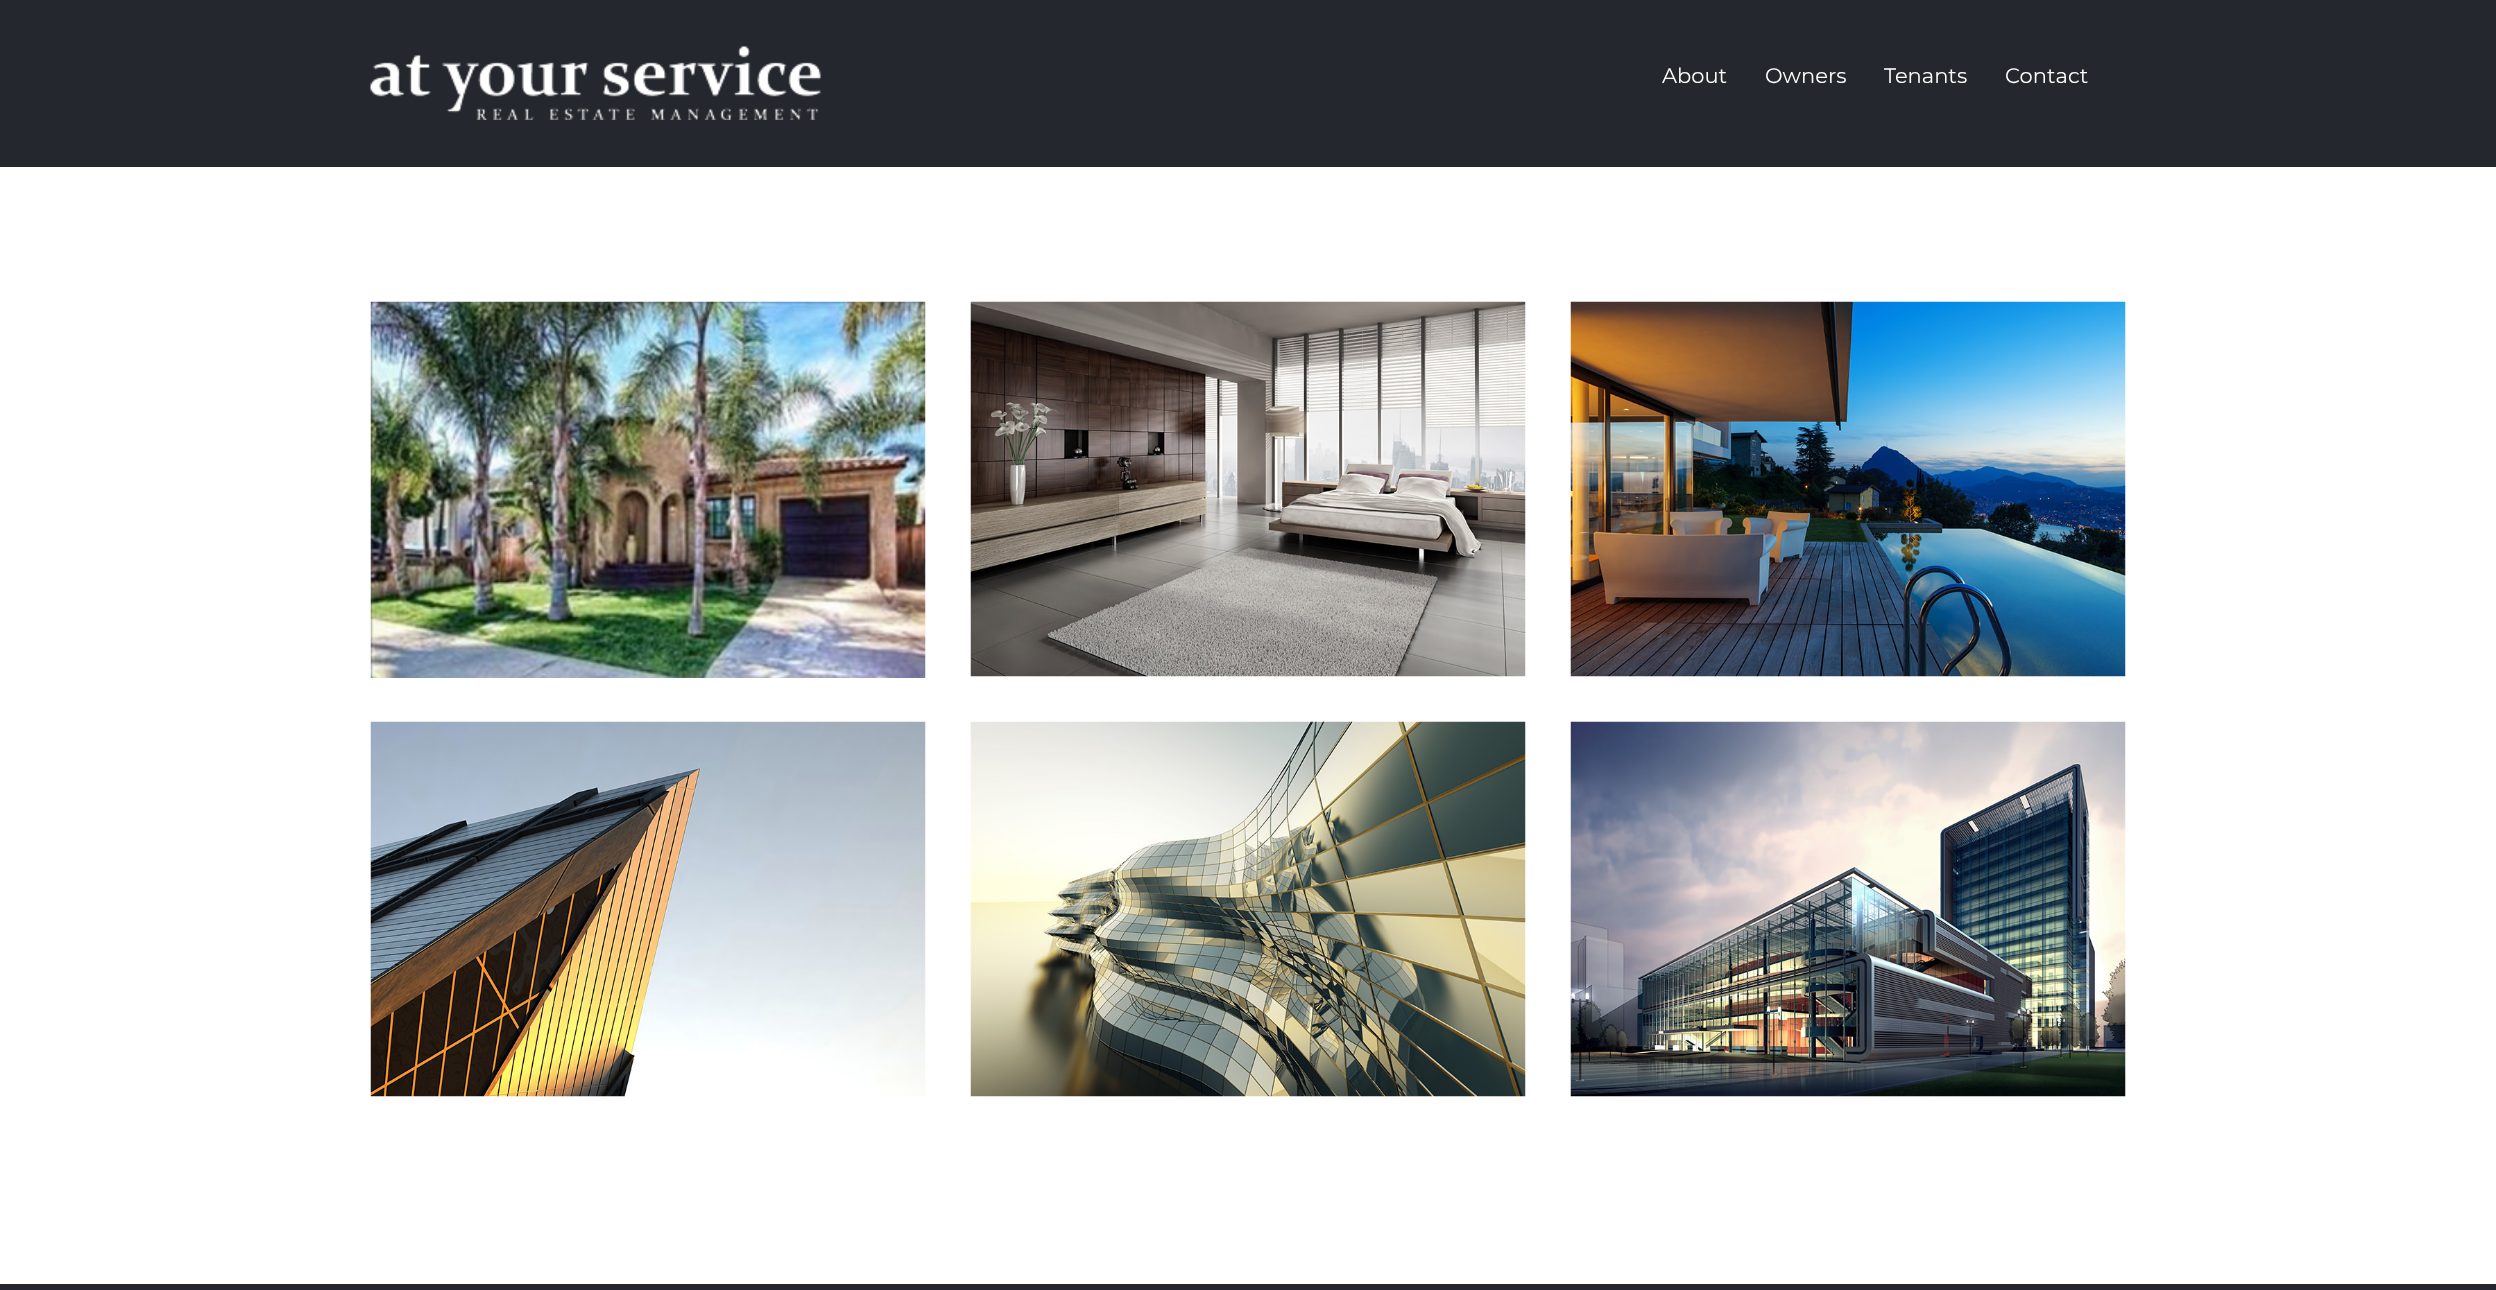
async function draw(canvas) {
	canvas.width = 2496;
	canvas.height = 1290;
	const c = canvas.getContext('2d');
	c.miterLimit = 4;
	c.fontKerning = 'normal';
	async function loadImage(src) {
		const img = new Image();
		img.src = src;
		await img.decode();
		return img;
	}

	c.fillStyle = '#fff';
	c.fillRect(0, 0, 2496, 1290);
	c.fillStyle = '#24272d';
	c.fillRect(0, 0, 2496, 167);
	c.drawImage(await loadImage('img1.png'), 370, 46, 451, 74);
	c.font = '100 21px Montserrat';
	c.fillStyle = '#fff';
	for (const [text, x, y] of [
		['About', 1662, 83],
		['Owners', 1765, 83],
		['Tenants', 1884, 83],
		['Contact', 2005, 83],
	]) {
		c.fillText(text, x, y);
	}
	c.drawImage(await loadImage('img2.png'), 370, 301, 556, 377);
	c.drawImage(await loadImage('img3.png'), 970, 301, 556, 376);
	c.drawImage(await loadImage('img4.png'), 1570, 301, 556, 376);
	c.drawImage(await loadImage('img5.png'), 370, 721, 556, 376);
	c.drawImage(await loadImage('img6.png'), 970, 721, 556, 376);
	c.drawImage(await loadImage('img7.png'), 1570, 721, 556, 376);
	c.fillStyle = '#24272d';
	c.fillRect(0, 1284, 2496, 6);
}

draw(document.querySelector('canvas'));
